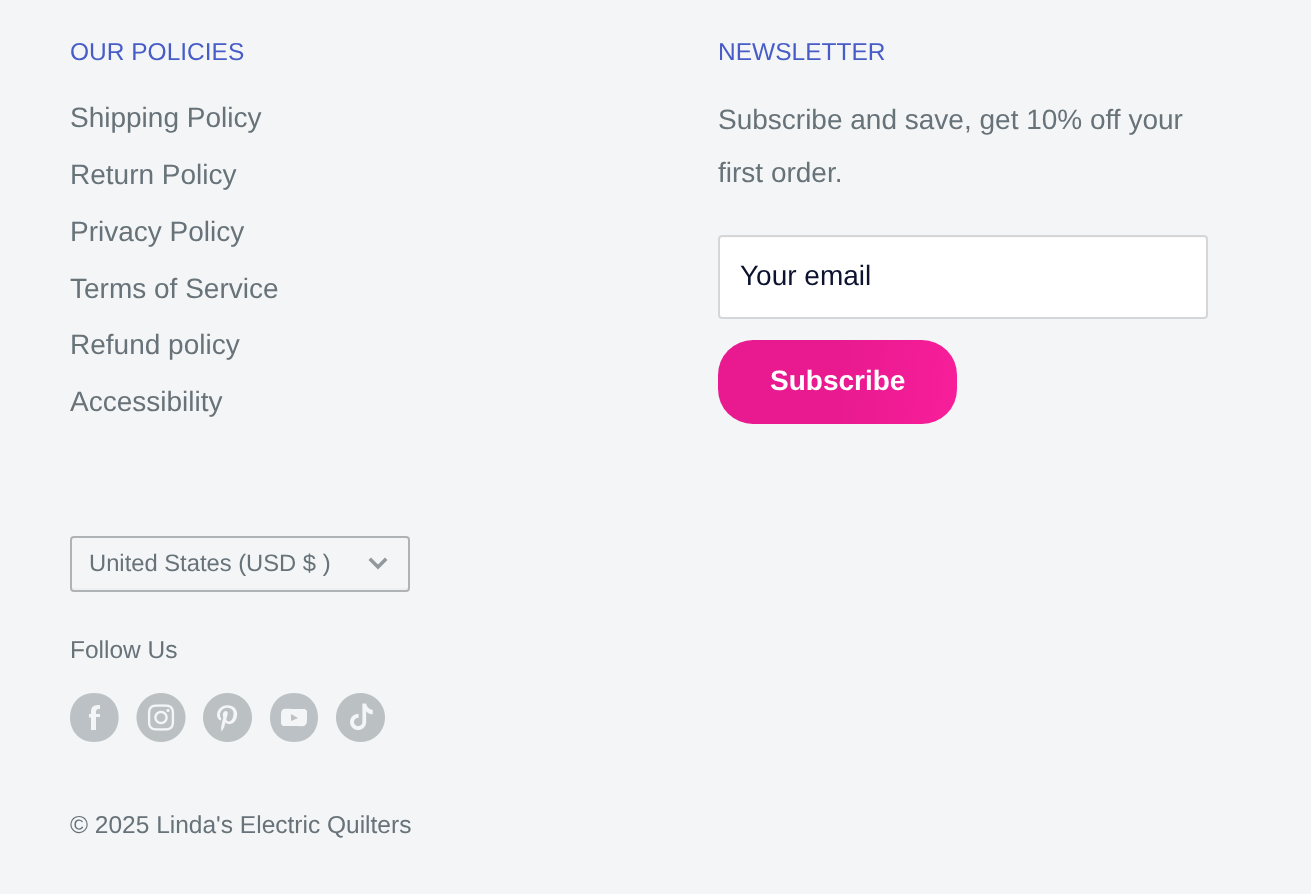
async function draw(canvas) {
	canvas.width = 1311;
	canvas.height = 894;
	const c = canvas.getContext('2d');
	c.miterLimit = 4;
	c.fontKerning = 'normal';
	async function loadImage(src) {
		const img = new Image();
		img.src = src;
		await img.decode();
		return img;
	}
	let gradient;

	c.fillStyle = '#f3f5f6';
	c.fillRect(0, 0, 1311, 894);
	c.font = '24.5px Liberation Sans';
	c.fillStyle = '#485cc7';
	c.fillText('OUR POLICIES', 70, 60);
	c.font = '28px Liberation Sans';
	c.fillStyle = '#677279';
	for (const [text, x, y] of [
		['Shipping Policy', 70, 127],
		['Return Policy', 70, 184],
		['Privacy Policy', 70, 241],
		['Terms of Service', 70, 298],
		['Refund policy', 70, 354],
		['Accessibility', 70, 411],
	]) {
		c.fillText(text, x, y);
	}
	c.font = '24.5px Liberation Sans';
	c.fillStyle = '#485cc7';
	c.fillText('NEWSLETTER', 718, 60);
	c.font = '28px Liberation Sans';
	c.fillStyle = '#677279';
	c.fillText('Subscribe and save, get 10% off your', 718, 129);
	c.fillText('first order.', 718, 182);
	c.fillStyle = '#fff';
	c.beginPath();
	c.roundRect(718, 235, 490, 84, 4);
	c.fill();
	c.fillStyle = '#f8f8f8';
	c.beginPath();
	c.moveTo(721, 238);
	c.lineTo(1204, 238);
	c.bezierCurveTo(1205, 238, 1206, 239, 1206, 240);
	c.bezierCurveTo(1206, 238, 1206, 236, 1204, 236);
	c.lineTo(721, 236);
	c.bezierCurveTo(719, 236, 719, 238, 719, 240);
	c.bezierCurveTo(719, 239, 720, 238, 721, 238);
	c.closePath();
	c.fill();
	c.beginPath();
	c.roundRect(719, 236, 488, 82, 3);
	c.strokeStyle = '#d4d6d8';
	c.lineWidth = 2;
	c.stroke();
	c.fillStyle = '#0d122e';
	c.fillText('Your email', 740, 285);
	gradient = c.createLinearGradient(715, 371, 985, 394);
	gradient.addColorStop(0.47, '#e91a90');
	gradient.addColorStop(1, '#fb1f9c');
	c.fillStyle = gradient;
	c.beginPath();
	c.roundRect(718, 340, 239, 84, 35);
	c.fill();
	c.font = 'bold 28px Liberation Sans';
	c.fillStyle = '#fff';
	c.fillText('Subscribe', 770, 390);
	c.fillStyle = '#eef0f1';
	c.beginPath();
	c.moveTo(72, 586);
	c.lineTo(72, 588);
	c.bezierCurveTo(72, 589, 73, 590, 74, 590);
	c.lineTo(406, 590);
	c.bezierCurveTo(407, 590, 408, 589, 408, 588);
	c.lineTo(408, 586);
	c.bezierCurveTo(408, 587, 407, 588, 406, 588);
	c.lineTo(74, 588);
	c.bezierCurveTo(73, 588, 72, 587, 72, 586);
	c.closePath();
	c.fill();
	c.beginPath();
	c.roundRect(71, 537, 338, 54, 3);
	c.strokeStyle = '#adb3b7';
	c.stroke();
	c.font = '23.75px Liberation Sans';
	c.fillStyle = '#677279';
	c.fillText('United States (USD $ )', 89, 571);
	c.beginPath();
	c.moveTo(385, 560);
	c.lineTo(378, 567);
	c.lineTo(371, 560);
	c.strokeStyle = '#91999f';
	c.lineWidth = 3.5;
	c.lineCap = 'square';
	c.stroke();
	c.font = '24.5px Liberation Sans';
	c.fillText('Follow Us', 70, 658);
	c.fillStyle = '#bbc1c4';
	c.beginPath();
	c.moveTo(94, 742);
	c.bezierCurveTo(62, 742, 62, 693, 94, 693);
	c.bezierCurveTo(127, 693, 127, 742, 94, 742);
	c.closePath();
	c.moveTo(100, 714);
	c.lineTo(96, 714);
	c.bezierCurveTo(96, 710, 96, 709, 100, 709);
	c.lineTo(100, 705);
	c.bezierCurveTo(92, 705, 91, 707, 91, 714);
	c.lineTo(89, 714);
	c.lineTo(89, 718);
	c.lineTo(91, 717);
	c.lineTo(91, 730);
	c.lineTo(96, 730);
	c.lineTo(96, 717);
	c.lineTo(100, 717);
	c.closePath();
	c.fill('evenodd');
	c.drawImage(await loadImage('img1.png'), 136, 693, 50, 49);
	c.drawImage(await loadImage('img2.png'), 203, 693, 49, 49);
	c.beginPath();
	c.moveTo(294, 742);
	c.bezierCurveTo(326, 742, 326, 693, 294, 693);
	c.bezierCurveTo(262, 693, 262, 742, 294, 742);
	c.closePath();
	c.moveTo(307, 711);
	c.lineTo(307, 720);
	c.bezierCurveTo(307, 728, 302, 726, 294, 726);
	c.lineTo(283, 726);
	c.lineTo(281, 724);
	c.lineTo(281, 715);
	c.bezierCurveTo(281, 707, 285, 709, 293, 709);
	c.lineTo(305, 709);
	c.closePath();
	c.moveTo(291, 721);
	c.lineTo(298, 718);
	c.lineTo(291, 714);
	c.closePath();
	c.fill('evenodd');
	c.drawImage(await loadImage('img3.png'), 336, 693, 49, 49);
	c.fillStyle = '#677279';
	c.fillText('© 2025 Linda\'s Electric Quilters', 70, 833);
}

draw(document.querySelector('canvas'));
